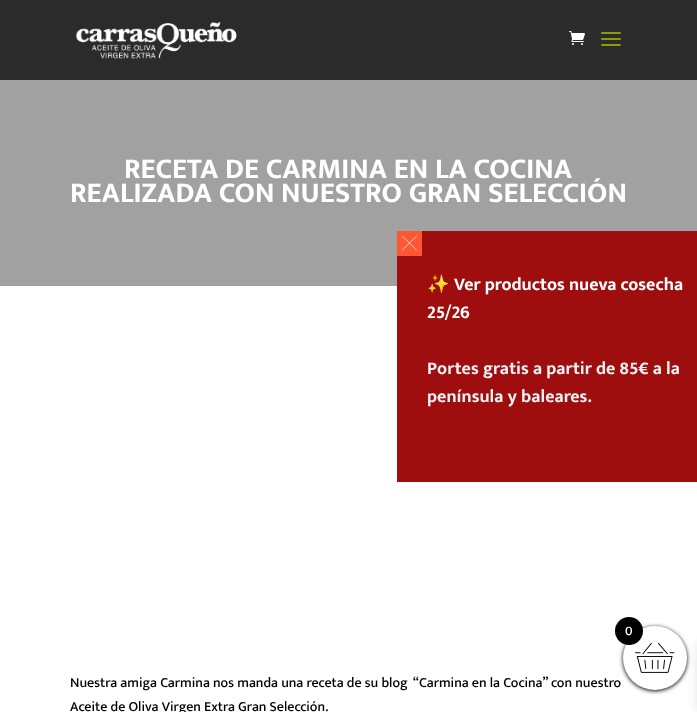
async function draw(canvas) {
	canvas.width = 697;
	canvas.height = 712;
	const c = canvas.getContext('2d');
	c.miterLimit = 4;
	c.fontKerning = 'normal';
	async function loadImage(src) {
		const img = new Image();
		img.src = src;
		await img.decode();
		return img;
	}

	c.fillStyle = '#fff';
	c.fillRect(0, 0, 697, 712);
	c.fillStyle = '#2b2b2b';
	c.fillRect(0, 0, 697, 80);
	c.drawImage(await loadImage('img1.png'), 76, 21, 161, 38);
	c.drawImage(await loadImage('img2.png'), 569, 31, 16, 14);
	c.drawImage(await loadImage('img3.png'), 601, 32, 20, 14);
	c.fillStyle = '#a1a1a1';
	c.fillRect(0, 80, 697, 206);
	c.font = 'bold 29px Mukta';
	c.fillStyle = '#fff';
	c.fillText('RECETA DE CARMINA EN LA COCINA', 124, 178);
	c.fillText('REALIZADA CON NUESTRO GRAN SELECCIÓN', 70, 202);
	c.font = '500 14px Mukta';
	c.fillStyle = '#000';
	c.fillText('Nuestra amiga Carmina nos manda una receta de su blog  “Carmina en la Cocina” con nuestro', 70, 687);
	c.fillText('Aceite de Oliva Virgen Extra Gran Selección.', 70, 711);
	c.fillStyle = '#9e0e0e';
	c.fillRect(397, 231, 300, 251);
	c.fillStyle = '#ff5733';
	c.fillRect(397, 231, 25, 25);
	c.drawImage(await loadImage('img4.png'), 402, 235, 15, 16);
	c.font = 'bold 18px Noto Color Emoji';
	c.fillStyle = '#fff';
	c.fillText('✨', 427, 290);
	c.font = 'bold 18px Mukta';
	c.fillText('Ver productos nueva cosecha', 454, 290);
	c.fillText('25/26', 427, 318);
	c.fillStyle = '#eceff1';
	c.fillText('Portes gratis a partir de 85€ a la', 427, 374);
	c.fillText('península y baleares.', 427, 402);
	c.fillStyle = '#000';
	c.filter = 'blur(2px)';
	c.beginPath();
	c.roundRect(623, 627, 64, 64, 32);
	c.fill();
	c.filter = 'none';
	c.fillStyle = '#0000001a';
	c.filter = 'blur(5px)';
	c.beginPath();
	c.rect(697, 643, 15, 68);
	c.fill();
	c.filter = 'none';
	c.fillStyle = '#fff';
	c.beginPath();
	c.arc(655, 658, 32, 0, 2 * Math.PI);
	c.fill();
	c.drawImage(await loadImage('img5.png'), 635, 642, 40, 31);
	c.fillStyle = '#000';
	c.beginPath();
	c.arc(629, 631, 14, 0, 2 * Math.PI);
	c.fill();
	c.font = '500 13px Mukta';
	c.fillStyle = '#fff';
	c.fillText('0', 625, 635);
}

draw(document.querySelector('canvas'));
